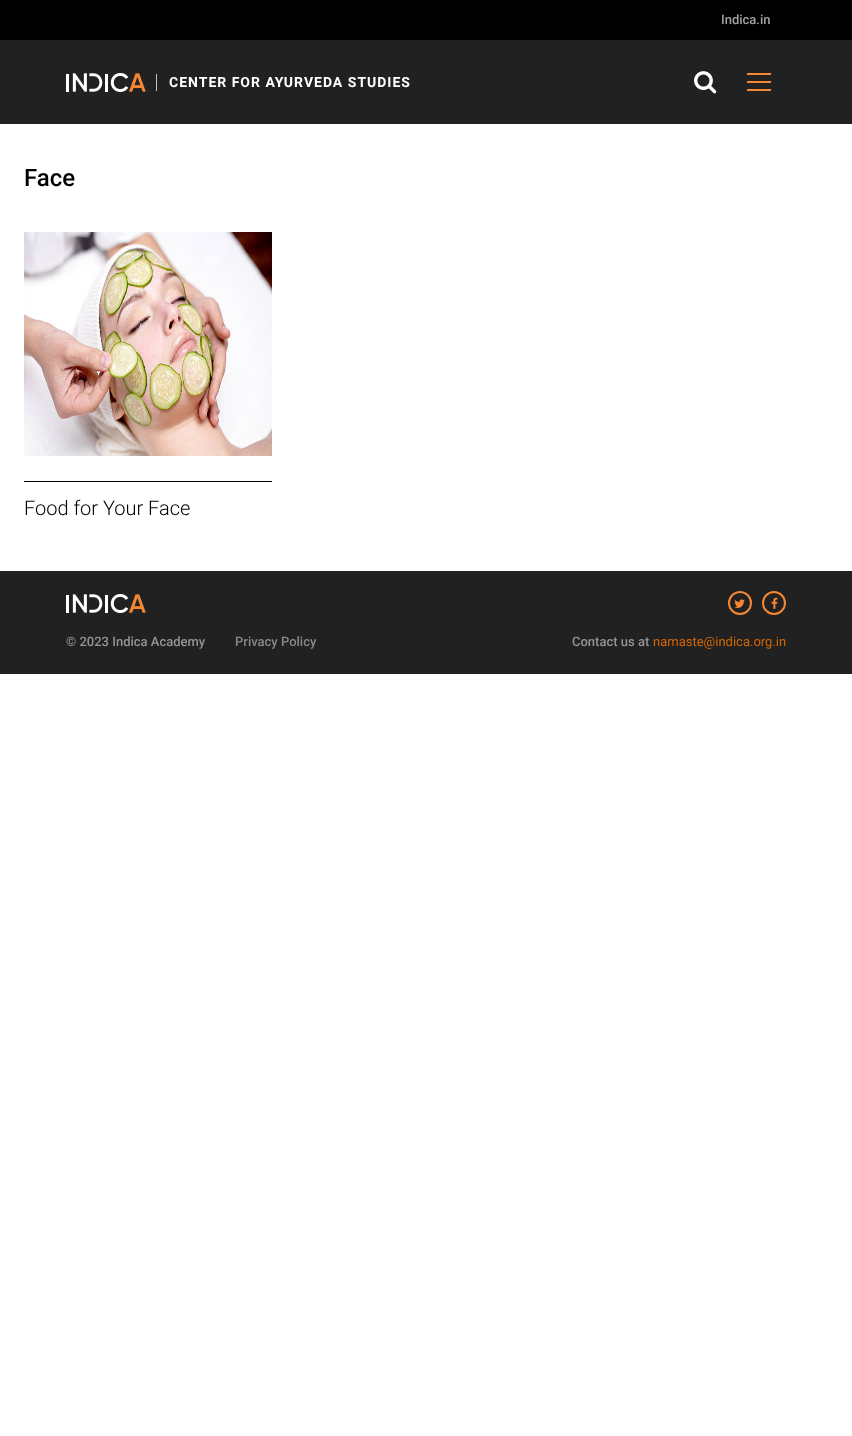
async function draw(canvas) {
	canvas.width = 852;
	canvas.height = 1436;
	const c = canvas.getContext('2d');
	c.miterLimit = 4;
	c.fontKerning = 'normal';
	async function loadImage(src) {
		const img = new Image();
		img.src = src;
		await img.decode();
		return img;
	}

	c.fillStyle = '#fff';
	c.fillRect(0, 0, 852, 1436);
	c.fillStyle = '#000';
	c.fillRect(0, 0, 852, 40);
	c.font = '500 13px Roboto';
	c.fillStyle = '#a2a2a2';
	c.fillText('Indica.in', 721, 24);
	c.fillStyle = '#212121';
	c.fillRect(0, 40, 852, 84);
	c.drawImage(await loadImage('img1.png'), 66, 73, 80, 19);
	c.fillStyle = '#c4c4c4';
	c.fillRect(156, 74, 1, 17);
	c.letterSpacing = '1px';
	c.font = 'bold 14px Roboto';
	c.fillStyle = '#fff';
	c.fillText('CENTER FOR AYURVEDA STUDIES', 169, 87);
	c.drawImage(await loadImage('img2.png'), 694, 71, 23, 23);
	for (const [x, y, w, h, color] of [
		[747, 73, 24, 2, '#f58634'],
		[747, 81, 24, 2, '#f58634'],
		[747, 89, 24, 2, '#f58634'],
	]) {
		c.fillStyle = color;
		c.fillRect(x, y, w, h);
	}
	c.letterSpacing = '0px';
	c.font = '500 24px Roboto';
	c.fillStyle = '#000';
	c.fillText('Face', 24, 186);
	c.fillRect(24, 481, 248, 1);
	c.drawImage(await loadImage('img3.png'), 24, 232, 248, 224);
	c.font = '300 20px Roboto';
	c.fillText('Food for Your Face', 24, 515);
	c.fillStyle = '#212121';
	c.fillRect(0, 571, 852, 103);
	c.drawImage(await loadImage('img1.png'), 66, 594, 80, 19);
	c.beginPath();
	c.arc(740, 603, 11, 0, 2 * Math.PI);
	c.strokeStyle = '#f58634';
	c.lineWidth = 2;
	c.stroke();
	c.drawImage(await loadImage('img4.png'), 734, 599, 11, 9);
	c.beginPath();
	c.arc(774, 603, 11, 0, 2 * Math.PI);
	c.stroke();
	c.drawImage(await loadImage('img5.png'), 771, 597, 7, 12);
	c.font = '500 13px Roboto';
	c.fillStyle = '#959595';
	c.fillText('© 2023 Indica Academy', 66, 646);
	c.fillStyle = '#898989';
	c.fillText('Privacy Policy', 235, 646);
	c.fillStyle = '#959595';
	c.fillText('Contact us at', 572, 646);
	c.font = '13px Roboto';
	c.fillStyle = '#d56706';
	c.fillText('namaste@indica.org.in', 653, 646);
}

draw(document.querySelector('canvas'));
